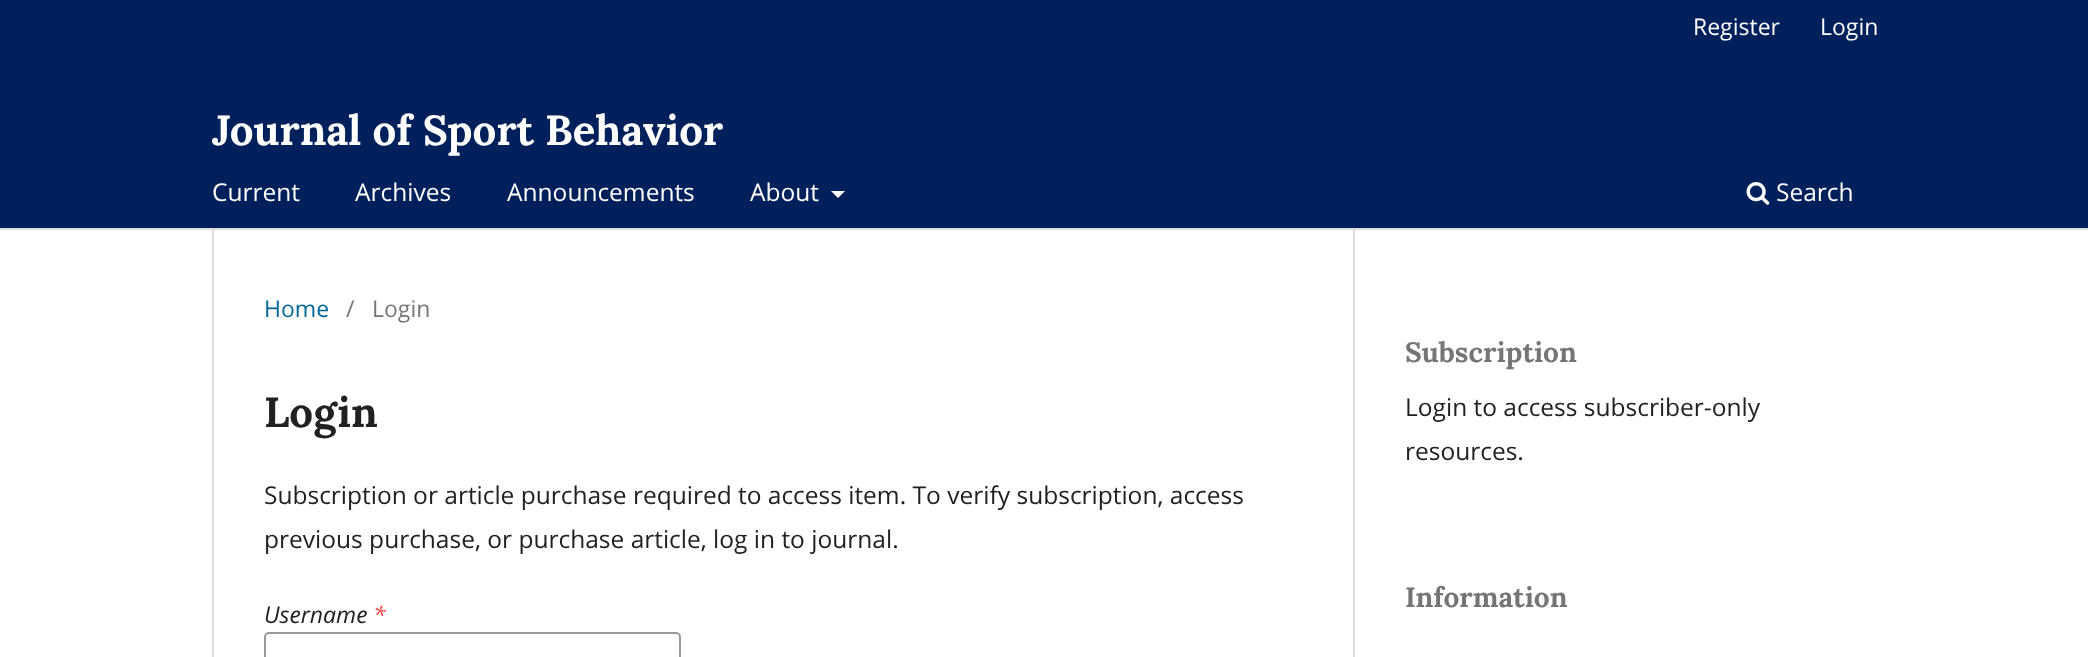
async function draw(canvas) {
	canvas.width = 2088;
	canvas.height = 657;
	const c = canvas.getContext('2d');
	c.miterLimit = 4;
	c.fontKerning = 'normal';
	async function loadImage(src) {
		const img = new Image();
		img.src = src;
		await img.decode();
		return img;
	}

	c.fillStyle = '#fff';
	c.fillRect(0, 0, 2088, 657);
	c.fillStyle = '#00205b';
	c.fillRect(0, 0, 2088, 228);
	c.fillStyle = '#ddd';
	c.fillRect(0, 228, 2088, 2);
	c.font = '23px Open Sans';
	c.fillStyle = '#fff';
	c.fillText('Register', 1693, 35);
	c.fillText('Login', 1820, 35);
	c.font = '24.5px Open Sans';
	for (const [text, x, y] of [
		['Current', 212, 201],
		['Archives', 355, 201],
		['Announcements', 507, 201],
		['About', 750, 201],
	]) {
		c.fillText(text, x, y);
	}
	c.beginPath();
	c.moveTo(831, 191);
	c.lineTo(845, 191);
	c.lineTo(838, 198);
	c.closePath();
	c.fill();
	c.drawImage(await loadImage('img1.png'), 1746, 182, 24, 23);
	c.fillText('Search', 1776, 201);
	c.font = 'bold 42px Lora';
	c.fillText('Journal of Sport Behavior', 212, 145);
	c.fillStyle = '#ddd';
	c.fillRect(212, 229, 2, 428);
	c.font = '23px Open Sans';
	c.fillStyle = '#006798';
	c.fillText('Home', 264, 317);
	c.fillStyle = '#757575';
	c.fillText('/', 346, 317);
	c.fillText('Login', 372, 317);
	c.font = 'bold 42px Lora';
	c.fillStyle = '#212121';
	c.fillText('Login', 264, 427);
	c.font = '24.5px Open Sans';
	c.fillText('Subscription or article purchase required to access item. To verify subscription, access', 264, 504);
	c.fillText('previous purchase, or purchase article, log in to journal.', 264, 548);
	c.font = 'italic 23px Open Sans';
	c.fillText('Username', 264, 623);
	c.fillStyle = '#ff4040';
	c.fillText('*', 373, 623);
	c.beginPath();
	c.roundRect(265, 633, 415, 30, 4);
	c.strokeStyle = '#999';
	c.lineWidth = 2;
	c.stroke();
	c.fillStyle = '#ddd';
	c.fillRect(1353, 229, 2, 428);
	c.font = 'bold 28px Lora';
	c.fillStyle = '#757575';
	c.fillText('Subscription', 1405, 362);
	c.font = '24.5px Open Sans';
	c.fillStyle = '#212121';
	c.fillText('Login to access subscriber-only', 1405, 416);
	c.fillText('resources.', 1405, 460);
	c.font = 'bold 28px Lora';
	c.fillStyle = '#757575';
	c.fillText('Information', 1405, 607);
}

draw(document.querySelector('canvas'));
